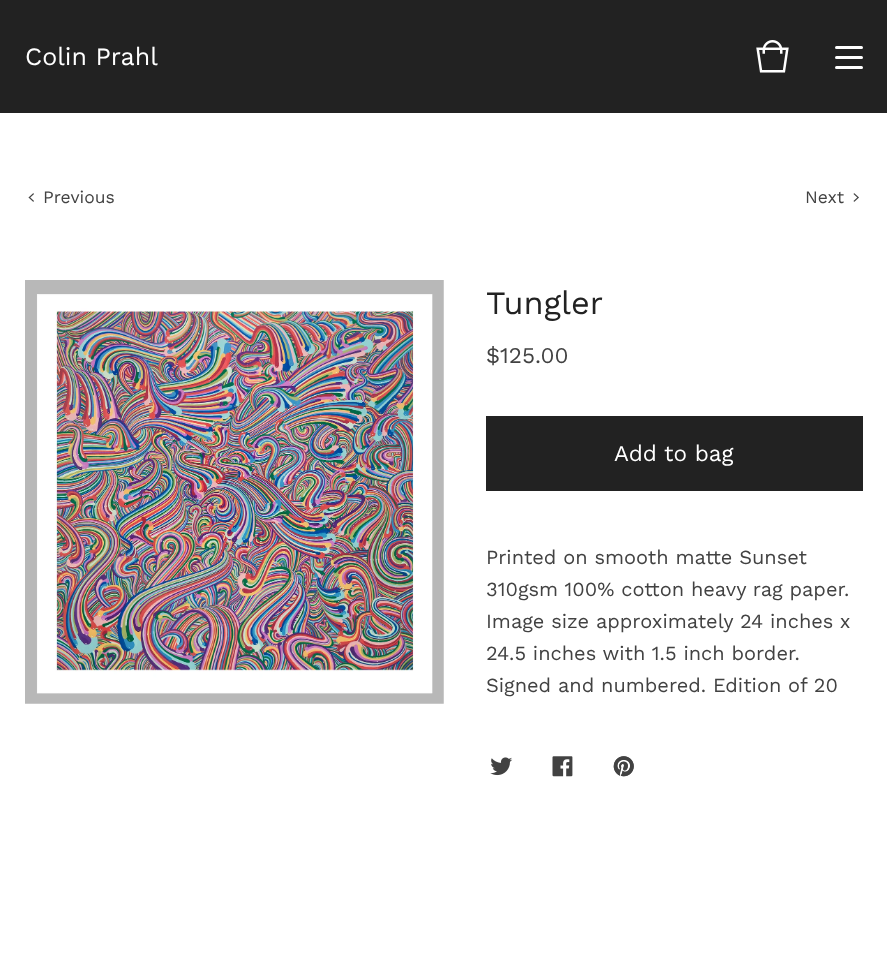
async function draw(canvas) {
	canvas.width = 887;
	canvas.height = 980;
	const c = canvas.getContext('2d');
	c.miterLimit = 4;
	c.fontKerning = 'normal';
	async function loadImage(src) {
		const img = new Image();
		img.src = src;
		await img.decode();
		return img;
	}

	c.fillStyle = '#fff';
	c.fillRect(0, 0, 887, 980);
	c.fillStyle = '#222';
	c.fillRect(0, 0, 887, 113);
	c.font = '25px Work Sans';
	c.fillStyle = '#fff';
	c.fillText('Colin Prahl', 25, 65);
	c.drawImage(await loadImage('img1.png'), 756, 40, 33, 33);
	c.beginPath();
	c.roundRect(835, 46, 28, 3, 1.5);
	c.fill();
	c.beginPath();
	c.roundRect(835, 56, 28, 3, 1.5);
	c.fill();
	c.beginPath();
	c.roundRect(835, 66, 28, 3, 1.5);
	c.fill();
	c.drawImage(await loadImage('img2.png'), 28, 193, 6, 9);
	c.font = '17.5px Work Sans';
	c.fillStyle = '#424242';
	c.fillText('Previous', 43, 203);
	c.fillText('Next', 805, 203);
	c.drawImage(await loadImage('img3.png'), 853, 193, 6, 9);
	c.drawImage(await loadImage('img4.png'), 25, 280, 419, 424);
	c.font = '32.5px Work Sans';
	c.fillStyle = '#222';
	c.fillText('Tungler', 486, 314);
	c.font = '22.5px Work Sans';
	c.fillStyle = '#424242';
	c.fillText('$125.00', 486, 363);
	c.fillStyle = '#222';
	c.fillRect(486, 416, 377, 75);
	c.fillStyle = '#fff';
	c.fillText('Add to bag', 614, 461);
	c.font = '20px Work Sans';
	c.fillStyle = '#424242';
	for (const [text, x, y] of [
		['Printed on smooth matte Sunset', 486, 564],
		['310gsm 100% cotton heavy rag paper.', 486, 596],
		['Image size approximately 24 inches x', 486, 628],
		['24.5 inches with 1.5 inch border.', 486, 660],
		['Signed and numbered. Edition of 20', 486, 692],
	]) {
		c.fillText(text, x, y);
	}
	c.drawImage(await loadImage('img5.png'), 490, 757, 23, 19);
	c.drawImage(await loadImage('img6.png'), 552, 756, 21, 21);
	c.drawImage(await loadImage('img7.png'), 613, 756, 21, 21);
}

draw(document.querySelector('canvas'));
